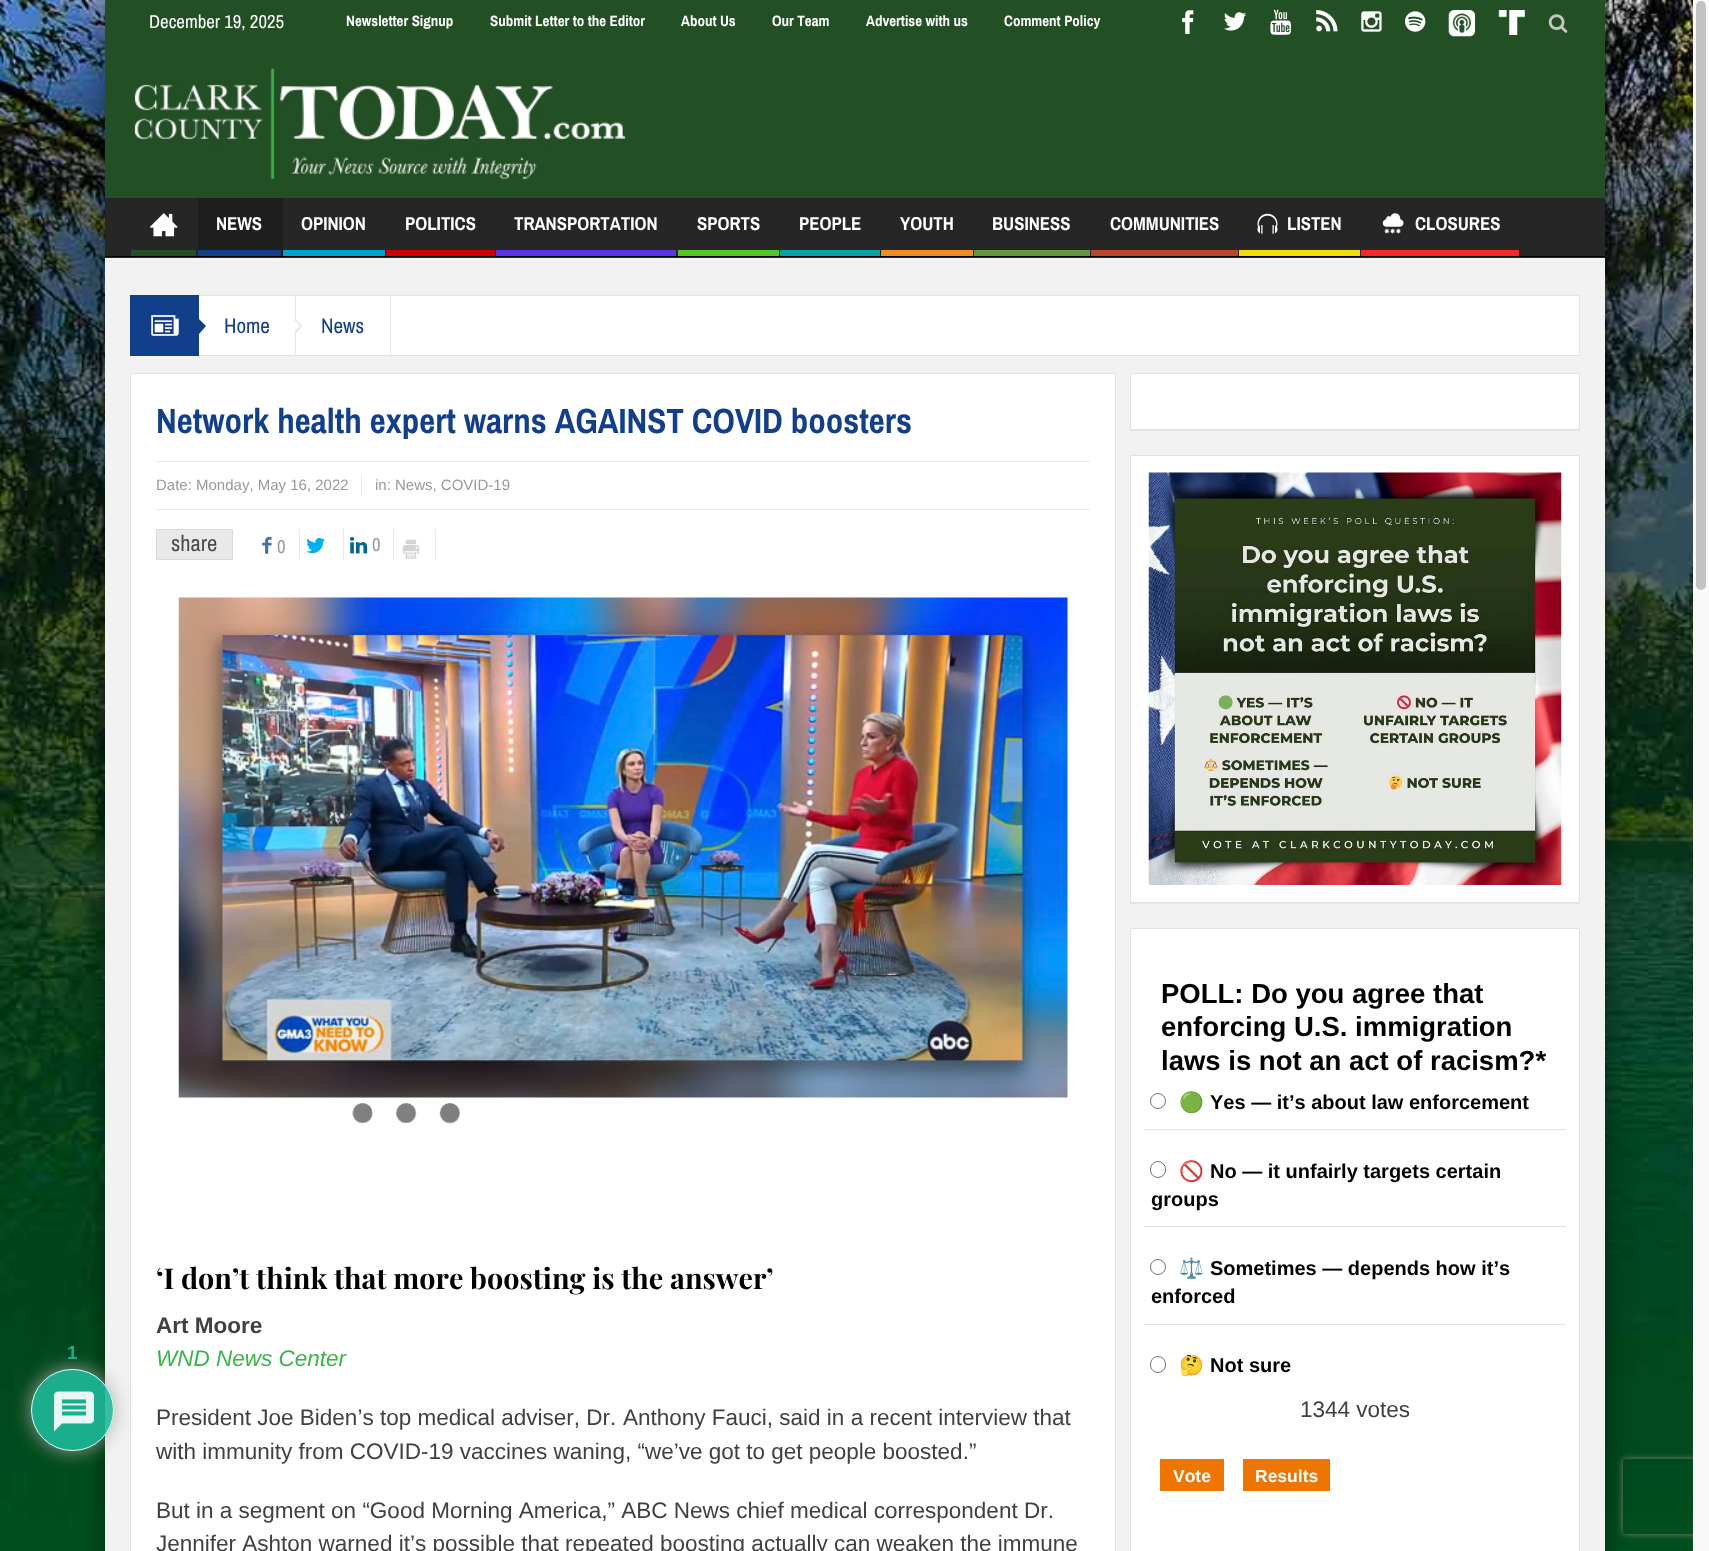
async function draw(canvas) {
	canvas.width = 1709;
	canvas.height = 1551;
	const c = canvas.getContext('2d');
	c.miterLimit = 4;
	c.fontKerning = 'none';
	async function loadImage(src) {
		const img = new Image();
		img.src = src;
		await img.decode();
		return img;
	}

	c.fillStyle = '#fff';
	c.fillRect(0, 0, 1709, 1551);
	c.drawImage(await loadImage('img1.png'), 0, 0, 1693, 1551);
	c.fillStyle = '#00000070';
	c.filter = 'blur(13px)';
	c.beginPath();
	c.rect(105, 0, 1500, 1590);
	c.fill();
	c.filter = 'none';
	c.fillStyle = '#f2f2f2';
	c.fillRect(105, 258, 1500, 1293);
	c.fillStyle = '#fff';
	c.beginPath();
	c.rect(130.5, 373.5, 985, 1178);
	c.fill();
	c.strokeStyle = '#e1e1e1';
	c.stroke();
	c.save();
	c.beginPath();
	c.moveTo(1, 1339);
	c.lineTo(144, 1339);
	c.lineTo(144, 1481);
	c.lineTo(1, 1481);
	c.closePath();
	c.moveTo(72, 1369);
	c.lineTo(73, 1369);
	c.bezierCurveTo(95.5, 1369, 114, 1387.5, 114, 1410);
	c.bezierCurveTo(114, 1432.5, 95.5, 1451, 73, 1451);
	c.lineTo(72, 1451);
	c.bezierCurveTo(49.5, 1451, 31, 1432.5, 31, 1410);
	c.bezierCurveTo(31, 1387.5, 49.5, 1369, 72, 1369);
	c.closePath();
	c.clip('evenodd');
	c.fillStyle = '#aaaaaae6';
	c.filter = 'blur(9.5px)';
	c.beginPath();
	c.roundRect(31, 1369, 83, 82, 41);
	c.fill();
	c.filter = 'none';
	c.restore();
	c.fillStyle = '#1db99ae6';
	c.beginPath();
	c.roundRect(31, 1369, 83, 82, 41);
	c.fill();
	c.beginPath();
	c.roundRect(31.5, 1369.5, 82, 81, 40.5);
	c.strokeStyle = '#ffffffe6';
	c.stroke();
	c.drawImage(await loadImage('img2.png'), 54, 1391, 40, 41);
	c.font = 'bold 18.75px Liberation Sans';
	c.fillStyle = '#1aad8d';
	c.fillText('1', 67, 1359);
	c.fillStyle = '#234f25';
	c.fillRect(105, 0, 1500, 198);
	c.font = '18.75px Archivo Narrow';
	c.fillStyle = '#fff';
	c.fillText('December 19, 2025', 149, 28);
	c.font = 'bold 15px Archivo Narrow';
	for (const [text, x, y] of [
		['Newsletter Signup', 346, 26],
		['Submit Letter to the Editor', 490, 26],
		['About Us', 681, 26],
		['Our Team', 772, 26],
		['Advertise with us', 866, 26],
		['Comment Policy', 1004, 26],
	]) {
		c.fillText(text, x, y);
	}
	c.drawImage(await loadImage('img3.png'), 1182, 10, 12, 24);
	c.drawImage(await loadImage('img4.png'), 1224, 12, 23, 19);
	c.drawImage(await loadImage('img5.png'), 1270, 9, 22, 26);
	c.drawImage(await loadImage('img6.png'), 1316, 10, 22, 22);
	c.drawImage(await loadImage('img7.png'), 1361, 11, 21, 21);
	c.drawImage(await loadImage('img8.png'), 1405, 11, 21, 21);
	c.drawImage(await loadImage('img9.png'), 1448, 10, 27, 27);
	c.drawImage(await loadImage('img10.png'), 1498, 10, 27, 25);
	c.drawImage(await loadImage('img11.png'), 1548, 14, 20, 19);
	c.drawImage(await loadImage('img12.png'), 134, 68, 492, 111);
	c.fillStyle = '#262626';
	c.fillRect(105, 198, 1500, 60);
	c.fillStyle = '#000';
	c.fillRect(105, 256, 1500, 1);
	c.drawImage(await loadImage('img13.png'), 150, 213, 28, 24);
	c.fillStyle = '#234f25';
	c.fillRect(131, 250, 65, 6);
	c.fillStyle = '#1e1e1e';
	c.fillRect(198, 198, 85, 58);
	c.font = 'bold 18.75px Archivo Narrow';
	c.fillStyle = '#fff';
	c.fillText('NEWS', 216, 230);
	c.fillStyle = '#113f8c';
	c.fillRect(198, 250, 83, 6);
	c.fillStyle = '#fff';
	c.fillText('OPINION', 301, 230);
	c.fillStyle = '#00a1cb';
	c.fillRect(283, 250, 102, 6);
	c.fillStyle = '#fff';
	c.fillText('POLITICS', 405, 230);
	c.fillStyle = '#d30000';
	c.fillRect(386, 250, 109, 6);
	c.fillStyle = '#fff';
	c.fillText('TRANSPORTATION', 514, 230);
	c.fillStyle = '#5a34e7';
	c.fillRect(496, 250, 180, 6);
	c.fillStyle = '#fff';
	c.fillText('SPORTS', 697, 230);
	c.fillStyle = '#55c826';
	c.fillRect(678, 250, 101, 6);
	c.fillStyle = '#fff';
	c.fillText('PEOPLE', 799, 230);
	c.fillStyle = '#01a4a4';
	c.fillRect(780, 250, 100, 6);
	c.fillStyle = '#fff';
	c.fillText('YOUTH', 900, 230);
	c.fillStyle = '#f18d21';
	c.fillRect(881, 250, 92, 6);
	c.fillStyle = '#fff';
	c.fillText('BUSINESS', 992, 230);
	c.fillStyle = '#65973d';
	c.fillRect(974, 250, 116, 6);
	c.fillStyle = '#fff';
	c.fillText('COMMUNITIES', 1110, 230);
	c.fillStyle = '#ba472a';
	c.fillRect(1091, 250, 147, 6);
	c.drawImage(await loadImage('img14.png'), 1257, 213, 21, 21);
	c.fillStyle = '#fff';
	c.fillText('LISTEN', 1287, 230);
	c.fillStyle = '#f4dc00';
	c.fillRect(1239, 250, 121, 6);
	c.drawImage(await loadImage('img15.png'), 1382, 213, 22, 21);
	c.fillStyle = '#fff';
	c.fillText('CLOSURES', 1415, 230);
	for (const [x, y, w, h, color] of [
		[1361, 250, 158, 6, '#ff2828'],
		[199, 296, 1380, 59, '#fff'],
		[199, 295, 1381, 1, '#e5e5e5'],
		[1579, 295, 1, 61, '#e5e5e5'],
		[199, 355, 1381, 1, '#e1e1e1'],
		[130, 295, 69, 61, '#113f8c'],
	]) {
		c.fillStyle = color;
		c.fillRect(x, y, w, h);
	}
	c.drawImage(await loadImage('img16.png'), 151, 315, 28, 21);
	c.beginPath();
	c.moveTo(199, 334);
	c.lineTo(199, 319);
	c.lineTo(206, 326);
	c.closePath();
	c.fill();
	c.fillStyle = '#e5e5e5';
	c.fillRect(295, 296, 1, 59);
	c.font = '21px Archivo Narrow';
	c.fillStyle = '#113f8c';
	c.fillText('Home', 224, 333);
	c.fillStyle = '#e5e5e5';
	c.beginPath();
	c.moveTo(295, 334);
	c.lineTo(295, 319);
	c.lineTo(302.5, 326);
	c.closePath();
	c.fill();
	c.fillStyle = '#fff';
	c.beginPath();
	c.moveTo(295, 331);
	c.lineTo(295, 321);
	c.lineTo(300, 326);
	c.closePath();
	c.fill();
	c.fillStyle = '#e5e5e5';
	c.fillRect(390, 296, 1, 59);
	c.fillStyle = '#113f8c';
	c.fillText('News', 321, 333);
	c.font = 'bold 35px Archivo Narrow';
	c.fillText('Network health expert warns AGAINST COVID boosters', 156, 433);
	for (const [x, y, w, h, color] of [
		[156, 461, 934, 1, '#e9e9e9'],
		[156, 509, 934, 1, '#e9e9e9'],
		[361, 475, 1, 21, '#e9e9e9'],
	]) {
		c.fillStyle = color;
		c.fillRect(x, y, w, h);
	}
	c.font = '15px Liberation Sans';
	c.fillStyle = '#999';
	c.fillText('Date: Monday, May 16, 2022', 156, 490);
	c.fillText('in: News, COVID-19', 375, 490);
	c.fillStyle = '#e9e9e9';
	c.beginPath();
	c.rect(156.5, 529.5, 76, 30);
	c.fill();
	c.strokeStyle = '#dbdbdb';
	c.stroke();
	c.font = '22.5px Archivo Narrow';
	c.fillStyle = '#4b4b4b';
	c.fillText('share', 171, 551);
	c.fillStyle = '#e9e9e9';
	c.fillRect(299, 529, 1, 31);
	c.drawImage(await loadImage('img17.png'), 262, 536, 10, 18);
	c.font = '18.75px Archivo Narrow';
	c.fillStyle = '#999';
	c.fillText('0', 277, 553);
	c.fillStyle = '#e9e9e9';
	c.fillRect(343, 529, 1, 31);
	c.drawImage(await loadImage('img18.png'), 306, 537, 19, 17);
	c.fillRect(393, 529, 1, 31);
	c.drawImage(await loadImage('img19.png'), 350, 537, 18, 17);
	c.fillStyle = '#999';
	c.fillText('0', 372, 551);
	c.fillStyle = '#e9e9e9';
	c.fillRect(435, 529, 1, 31);
	c.drawImage(await loadImage('img20.png'), 402, 539, 17, 20);
	c.drawImage(await loadImage('img21.png'), 178, 597, 890, 501);
	c.drawImage(await loadImage('img22.png'), 352, 1103, 108, 21);
	c.font = 'bold 28.75px Playfair Display';
	c.fillStyle = '#000';
	c.fillText('‘I don’t think that more boosting is the answer’', 156, 1289);
	c.font = 'bold 22.5px Liberation Sans';
	c.fillStyle = '#404040';
	c.fillText('Art Moore', 156, 1333);
	c.font = 'italic 22.5px Liberation Sans';
	c.fillStyle = '#39b54a';
	c.fillText('WND News Center', 156, 1366);
	c.font = '22.5px Liberation Sans';
	c.fillStyle = '#404040';
	for (const [text, x, y] of [
		['President Joe Biden’s top medical adviser, Dr.', 156, 1425],
		['Anthony Fauci, said in a recent interview that', 623, 1425],
		['with immunity from COVID-19 vaccines waning, “we’ve got to get people boosted.”', 156, 1459],
		['But in a segment on “Good Morning America,” ABC News chief medical correspondent Dr.', 156, 1518],
		['Jennifer Ashton warned it’s possible that repeated boosting actually can weaken the immune', 156, 1551],
	]) {
		c.fillText(text, x, y);
	}
	c.fillStyle = '#e5e5e5';
	c.fillRect(1130, 430, 450, 1);
	c.fillStyle = '#fff';
	c.beginPath();
	c.rect(1130.5, 373.5, 449, 56);
	c.fill();
	c.strokeStyle = '#e1e1e1';
	c.stroke();
	c.fillStyle = '#e5e5e5';
	c.fillRect(1130, 903, 450, 1);
	c.fillStyle = '#fff';
	c.beginPath();
	c.rect(1130.5, 455.5, 449, 447);
	c.fill();
	c.stroke();
	c.drawImage(await loadImage('img23.png'), 1148, 472, 414, 413);
	c.beginPath();
	c.rect(1130.5, 928.5, 449, 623);
	c.fill();
	c.stroke();
	c.font = 'bold 27.5px Liberation Sans';
	c.fillStyle = '#000';
	for (const [text, x, y] of [
		['POLL: Do you agree that', 1161, 1003],
		['enforcing U.S. immigration', 1161, 1036],
		['laws is not an act of racism?*', 1161, 1070],
	]) {
		c.fillText(text, x, y);
	}
	c.fillStyle = '#e1e1e1';
	c.fillRect(1144, 1129, 422, 1);
	c.beginPath();
	c.arc(1158, 1101, 7.5, 0, 2 * Math.PI);
	c.strokeStyle = '#767676';
	c.stroke();
	c.font = 'bold 20px Noto Color Emoji';
	c.fillStyle = '#000';
	c.fillText('🟢', 1179, 1109);
	c.font = 'bold 20px Liberation Sans';
	c.fillText('Yes — it’s about law enforcement', 1210, 1109);
	c.fillStyle = '#e1e1e1';
	c.fillRect(1144, 1226, 422, 1);
	c.beginPath();
	c.roundRect(1150.5, 1161.5, 15, 16, 7.5);
	c.stroke();
	c.font = 'bold 20px Noto Color Emoji';
	c.fillStyle = '#000';
	c.fillText('🚫', 1179, 1178);
	c.font = 'bold 20px Liberation Sans';
	c.fillText('No — it unfairly targets certain', 1210, 1178);
	c.fillText('groups', 1151, 1206);
	c.fillStyle = '#e1e1e1';
	c.fillRect(1144, 1324, 422, 1);
	c.beginPath();
	c.arc(1158, 1267, 7.5, 0, 2 * Math.PI);
	c.stroke();
	c.font = 'bold 20px Noto Color Emoji';
	c.fillStyle = '#000';
	c.fillText('⚖️', 1179, 1275);
	c.font = 'bold 20px Liberation Sans';
	c.fillText('Sometimes — depends how it’s', 1210, 1275);
	c.fillText('enforced', 1151, 1303);
	c.beginPath();
	c.roundRect(1150.5, 1356.5, 15, 16, 7.5);
	c.stroke();
	c.font = 'bold 20px Noto Color Emoji';
	c.fillText('🤔', 1179, 1372);
	c.font = 'bold 20px Liberation Sans';
	c.fillText('Not sure', 1210, 1372);
	c.font = '22.5px Liberation Sans';
	c.fillStyle = '#404040';
	c.fillText('1344 votes', 1300, 1417);
	c.fillStyle = '#ee7600';
	c.fillRect(1160, 1459, 64, 32);
	c.font = 'bold 17.5px Liberation Sans';
	c.fillStyle = '#fff';
	c.fillText('Vote', 1173, 1482);
	c.fillStyle = '#ee7600';
	c.fillRect(1243, 1459, 87, 32);
	c.fillStyle = '#fff';
	c.fillText('Results', 1255, 1482);
	c.save();
	c.beginPath();
	c.moveTo(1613, 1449);
	c.lineTo(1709, 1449);
	c.lineTo(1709, 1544);
	c.lineTo(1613, 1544);
	c.closePath();
	c.moveTo(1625.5, 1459);
	c.lineTo(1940.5, 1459);
	c.bezierCurveTo(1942, 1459, 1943, 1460, 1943, 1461.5);
	c.lineTo(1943, 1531.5);
	c.bezierCurveTo(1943, 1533, 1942, 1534, 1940.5, 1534);
	c.lineTo(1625.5, 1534);
	c.bezierCurveTo(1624, 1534, 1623, 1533, 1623, 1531.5);
	c.lineTo(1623, 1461.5);
	c.bezierCurveTo(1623, 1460, 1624, 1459, 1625.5, 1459);
	c.closePath();
	c.clip('evenodd');
	c.fillStyle = '#808080';
	c.filter = 'blur(3px)';
	c.beginPath();
	c.roundRect(1623, 1459, 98, 75, 2.5);
	c.fill();
	c.filter = 'none';
	c.restore();
	c.fillStyle = '#f9f9f9';
	c.fillRect(1693, 0, 16, 1551);
	c.fillStyle = '#c3c3c3';
	c.beginPath();
	c.roundRect(1696, 1, 10, 589, 5);
	c.fill();
}

draw(document.querySelector('canvas'));
